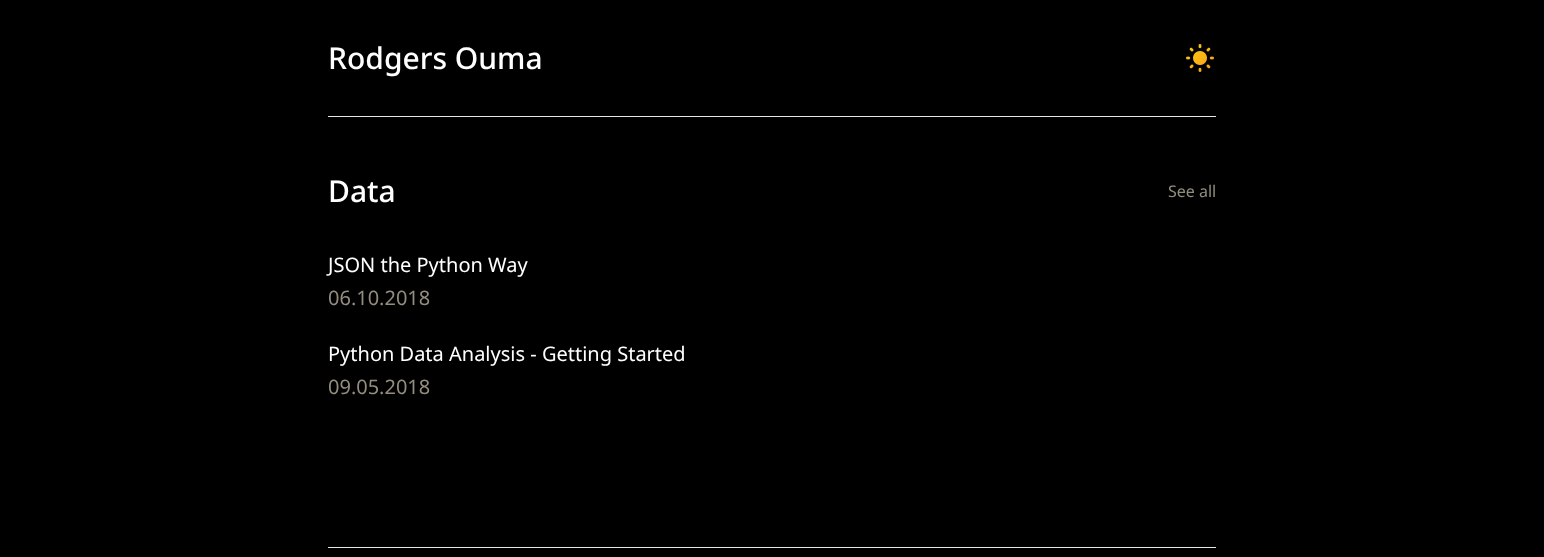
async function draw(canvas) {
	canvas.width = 1544;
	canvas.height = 557;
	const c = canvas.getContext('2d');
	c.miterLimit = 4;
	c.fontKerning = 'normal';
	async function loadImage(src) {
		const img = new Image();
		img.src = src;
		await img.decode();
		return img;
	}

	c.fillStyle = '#000';
	c.fillRect(0, 0, 1544, 557);
	c.font = '500 30px Noto Sans';
	c.fillStyle = '#fff';
	c.fillText('Rodgers Ouma', 328, 69);
	c.drawImage(await loadImage('img1.png'), 1186, 44, 28, 28);
	c.fillStyle = '#e5e7eb';
	c.fillRect(328, 116, 888, 1);
	c.fillStyle = '#fff';
	c.fillText('Data', 328, 202);
	c.font = '16px Noto Sans';
	c.fillStyle = '#948d7f';
	c.fillText('See all', 1168, 197);
	c.font = '20px Noto Sans';
	c.fillStyle = '#fff';
	c.fillText('JSON the Python Way', 328, 272);
	c.fillStyle = '#948d7f';
	c.fillText('06.10.2018', 328, 305);
	c.fillStyle = '#fff';
	c.fillText('Python Data Analysis - Getting Started', 328, 361);
	c.fillStyle = '#948d7f';
	c.fillText('09.05.2018', 328, 394);
	c.fillStyle = '#e5e7eb';
	c.fillRect(328, 547, 888, 1);
}

draw(document.querySelector('canvas'));
